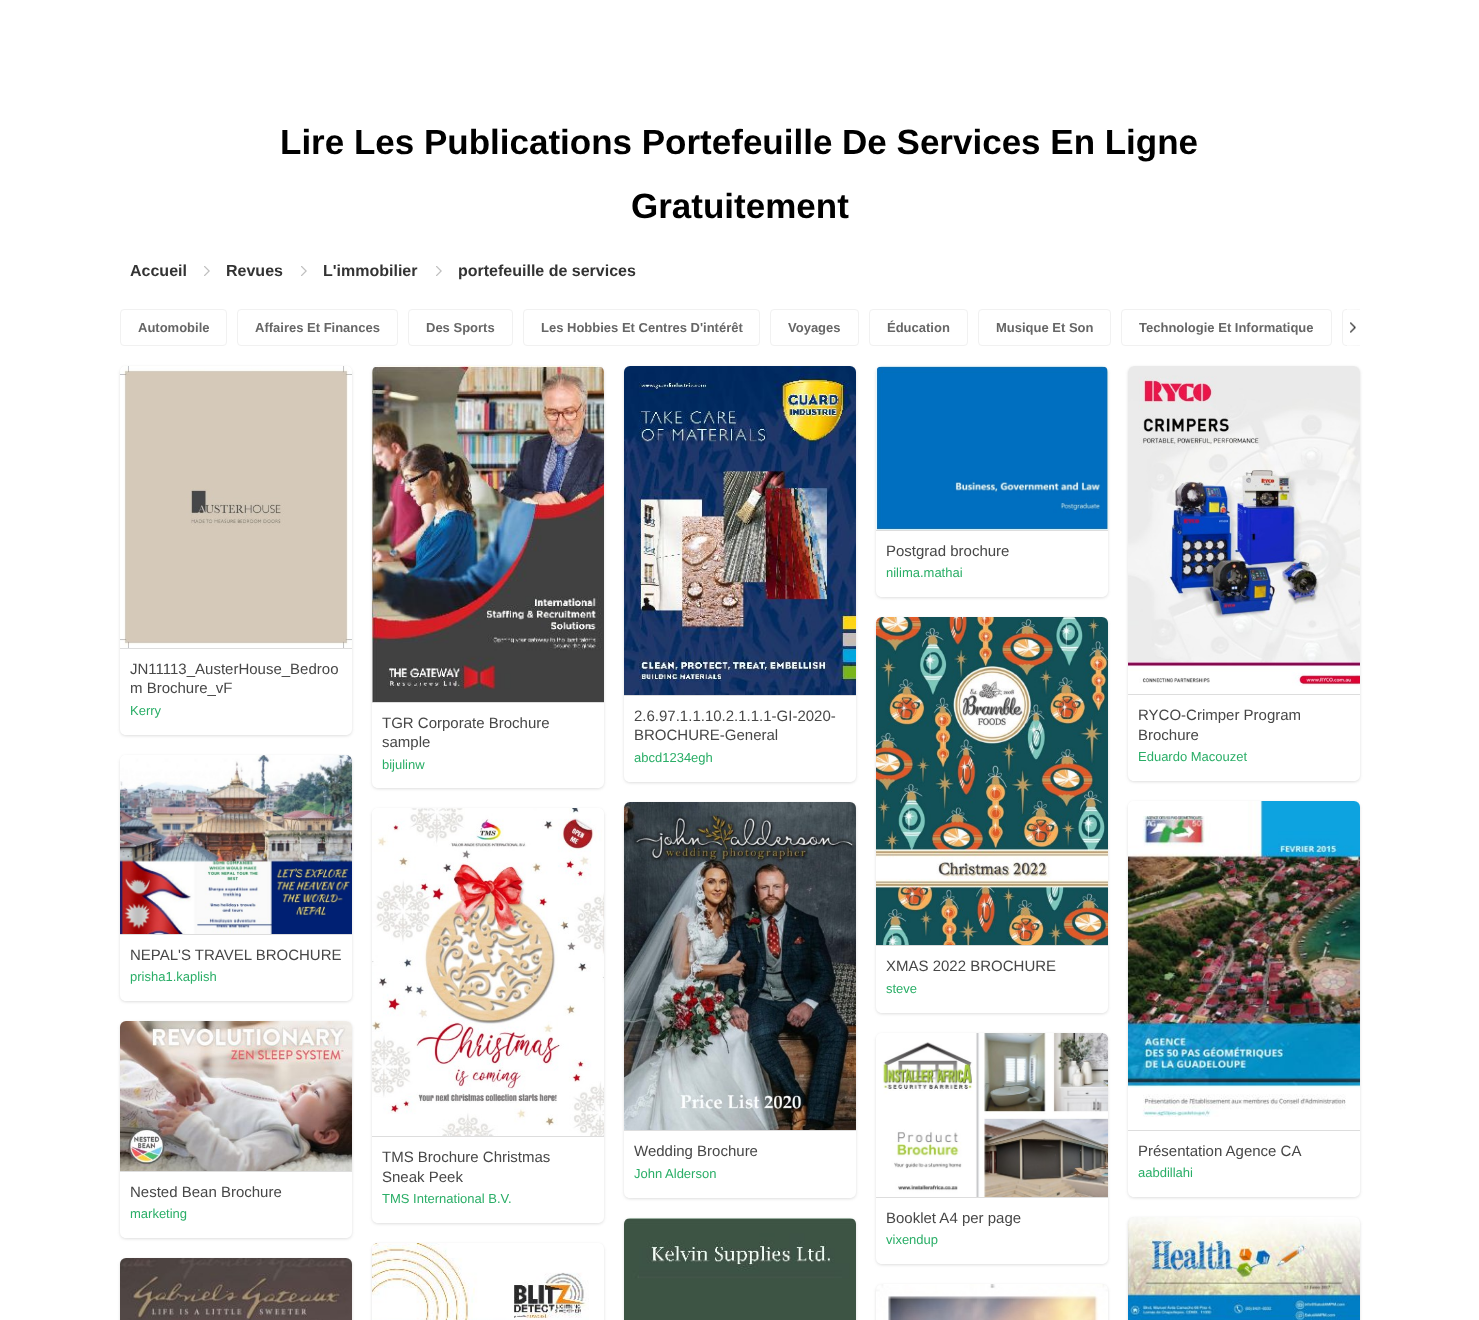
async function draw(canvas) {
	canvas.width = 1479;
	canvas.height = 1320;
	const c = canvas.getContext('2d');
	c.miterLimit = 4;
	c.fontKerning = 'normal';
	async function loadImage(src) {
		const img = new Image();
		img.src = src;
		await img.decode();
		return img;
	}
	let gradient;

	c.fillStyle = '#fff';
	c.fillRect(0, 0, 1479, 1320);
	c.font = 'bold 35px Liberation Sans';
	c.fillStyle = '#000';
	c.fillText('Lire Les Publications Portefeuille De Services En Ligne', 280, 154);
	c.fillText('Gratuitement', 631, 218);
	c.font = 'bold 16px Liberation Sans';
	c.fillStyle = '#333';
	c.fillText('Accueil', 130, 276);
	c.drawImage(await loadImage('img1.png'), 204, 266, 6, 10);
	c.fillText('Revues', 226, 276);
	c.drawImage(await loadImage('img1.png'), 301, 266, 6, 10);
	c.fillText('L\'immobilier', 323, 276);
	c.drawImage(await loadImage('img1.png'), 436, 266, 6, 10);
	c.fillText('portefeuille de services', 458, 276);
	c.save();
	c.beginPath();
	c.rect(120, 309, 1240, 37);
	c.clip();
	c.beginPath();
	c.roundRect(1342.5, 309.5, 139, 36, 3.5);
	c.strokeStyle = '#f1f1f1';
	c.stroke();
	c.restore();
	c.beginPath();
	c.roundRect(120.5, 309.5, 106, 36, 3.5);
	c.strokeStyle = '#f1f1f1';
	c.stroke();
	c.font = 'bold 13px Liberation Sans';
	c.fillStyle = '#666';
	c.fillText('Automobile', 138, 332);
	c.beginPath();
	c.roundRect(237.5, 309.5, 160, 36, 3.5);
	c.stroke();
	c.fillText('Affaires Et Finances', 255, 332);
	c.beginPath();
	c.roundRect(408.5, 309.5, 104, 36, 3.5);
	c.stroke();
	c.fillText('Des Sports', 426, 332);
	c.beginPath();
	c.roundRect(523.5, 309.5, 236, 36, 3.5);
	c.stroke();
	c.fillText('Les Hobbies Et Centres D\'intérêt', 541, 332);
	c.beginPath();
	c.roundRect(770.5, 309.5, 88, 36, 3.5);
	c.stroke();
	c.fillText('Voyages', 788, 332);
	c.beginPath();
	c.roundRect(869.5, 309.5, 98, 36, 3.5);
	c.stroke();
	c.fillText('Éducation', 887, 332);
	c.beginPath();
	c.roundRect(978.5, 309.5, 132, 36, 3.5);
	c.stroke();
	c.fillText('Musique Et Son', 996, 332);
	c.beginPath();
	c.roundRect(1121.5, 309.5, 210, 36, 3.5);
	c.stroke();
	c.fillText('Technologie Et Informatique', 1139, 332);
	gradient = c.createLinearGradient(1347, 328, 1360, 328);
	gradient.addColorStop(0, '#ffffffb3');
	gradient.addColorStop(1, '#ffffff66');
	c.fillStyle = gradient;
	c.fillRect(1347, 309, 13, 37);
	c.drawImage(await loadImage('img2.png'), 1350, 322, 6, 11);
	c.save();
	c.beginPath();
	c.moveTo(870, 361);
	c.lineTo(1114, 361);
	c.lineTo(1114, 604);
	c.lineTo(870, 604);
	c.closePath();
	c.moveTo(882, 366);
	c.lineTo(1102, 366);
	c.bezierCurveTo(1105.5, 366, 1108, 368.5, 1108, 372);
	c.lineTo(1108, 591);
	c.bezierCurveTo(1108, 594.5, 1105.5, 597, 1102, 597);
	c.lineTo(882, 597);
	c.bezierCurveTo(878.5, 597, 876, 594.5, 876, 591);
	c.lineTo(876, 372);
	c.bezierCurveTo(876, 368.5, 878.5, 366, 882, 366);
	c.closePath();
	c.clip('evenodd');
	c.fillStyle = '#ddd';
	c.filter = 'blur(1.5px)';
	c.beginPath();
	c.roundRect(876, 367, 232, 231, 6);
	c.fill();
	c.filter = 'none';
	c.restore();
	c.drawImage(await loadImage('img3.png'), 876, 366, 232, 164);
	c.fillStyle = '#ddd';
	c.fillRect(876, 530, 232, 1);
	c.font = '15px Liberation Sans';
	c.fillStyle = '#474747';
	c.fillText('Postgrad brochure', 886, 556);
	c.font = '13px Liberation Sans';
	c.fillStyle = '#2aae67';
	c.fillText('nilima.mathai', 886, 577);
	c.save();
	c.beginPath();
	c.moveTo(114, 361);
	c.lineTo(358, 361);
	c.lineTo(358, 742);
	c.lineTo(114, 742);
	c.closePath();
	c.moveTo(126, 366);
	c.lineTo(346, 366);
	c.bezierCurveTo(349.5, 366, 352, 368.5, 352, 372);
	c.lineTo(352, 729);
	c.bezierCurveTo(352, 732.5, 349.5, 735, 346, 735);
	c.lineTo(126, 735);
	c.bezierCurveTo(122.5, 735, 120, 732.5, 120, 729);
	c.lineTo(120, 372);
	c.bezierCurveTo(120, 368.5, 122.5, 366, 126, 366);
	c.closePath();
	c.clip('evenodd');
	c.fillStyle = '#ddd';
	c.filter = 'blur(1.5px)';
	c.beginPath();
	c.roundRect(120, 367, 232, 369, 6);
	c.fill();
	c.filter = 'none';
	c.restore();
	c.drawImage(await loadImage('img4.png'), 120, 366, 232, 282);
	c.fillStyle = '#ddd';
	c.fillRect(120, 648, 232, 1);
	c.font = '15px Liberation Sans';
	c.fillStyle = '#474747';
	c.fillText('JN11113_AusterHouse_Bedroo', 130, 674);
	c.fillText('m Brochure_vF', 130, 693);
	c.font = '13px Liberation Sans';
	c.fillStyle = '#2aae67';
	c.fillText('Kerry', 130, 715);
	c.save();
	c.beginPath();
	c.moveTo(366, 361);
	c.lineTo(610, 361);
	c.lineTo(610, 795);
	c.lineTo(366, 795);
	c.closePath();
	c.moveTo(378, 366);
	c.lineTo(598, 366);
	c.bezierCurveTo(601.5, 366, 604, 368.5, 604, 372);
	c.lineTo(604, 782);
	c.bezierCurveTo(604, 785.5, 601.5, 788, 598, 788);
	c.lineTo(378, 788);
	c.bezierCurveTo(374.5, 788, 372, 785.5, 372, 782);
	c.lineTo(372, 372);
	c.bezierCurveTo(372, 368.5, 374.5, 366, 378, 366);
	c.closePath();
	c.clip('evenodd');
	c.fillStyle = '#ddd';
	c.filter = 'blur(1.5px)';
	c.beginPath();
	c.roundRect(372, 367, 232, 422, 6);
	c.fill();
	c.filter = 'none';
	c.restore();
	c.drawImage(await loadImage('img5.png'), 372, 366, 232, 336);
	c.fillStyle = '#ddd';
	c.fillRect(372, 702, 232, 1);
	c.font = '15px Liberation Sans';
	c.fillStyle = '#474747';
	c.fillText('TGR Corporate Brochure', 382, 728);
	c.fillText('sample', 382, 747);
	c.font = '13px Liberation Sans';
	c.fillStyle = '#2aae67';
	c.fillText('bijulinw', 382, 769);
	c.save();
	c.beginPath();
	c.moveTo(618, 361);
	c.lineTo(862, 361);
	c.lineTo(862, 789);
	c.lineTo(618, 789);
	c.closePath();
	c.moveTo(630, 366);
	c.lineTo(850, 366);
	c.bezierCurveTo(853.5, 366, 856, 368.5, 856, 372);
	c.lineTo(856, 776);
	c.bezierCurveTo(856, 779.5, 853.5, 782, 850, 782);
	c.lineTo(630, 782);
	c.bezierCurveTo(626.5, 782, 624, 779.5, 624, 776);
	c.lineTo(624, 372);
	c.bezierCurveTo(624, 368.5, 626.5, 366, 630, 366);
	c.closePath();
	c.clip('evenodd');
	c.fillStyle = '#ddd';
	c.filter = 'blur(1.5px)';
	c.beginPath();
	c.roundRect(624, 367, 232, 416, 6);
	c.fill();
	c.filter = 'none';
	c.restore();
	c.drawImage(await loadImage('img6.png'), 624, 366, 232, 329);
	c.fillStyle = '#ddd';
	c.fillRect(624, 695, 232, 1);
	c.font = '15px Liberation Sans';
	c.fillStyle = '#474747';
	c.fillText('2.6.97.1.1.10.2.1.1.1-GI-2020-', 634, 721);
	c.fillText('BROCHURE-General', 634, 740);
	c.font = '13px Liberation Sans';
	c.fillStyle = '#2aae67';
	c.fillText('abcd1234egh', 634, 762);
	c.save();
	c.beginPath();
	c.moveTo(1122, 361);
	c.lineTo(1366, 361);
	c.lineTo(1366, 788);
	c.lineTo(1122, 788);
	c.closePath();
	c.moveTo(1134, 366);
	c.lineTo(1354, 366);
	c.bezierCurveTo(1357.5, 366, 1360, 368.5, 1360, 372);
	c.lineTo(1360, 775);
	c.bezierCurveTo(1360, 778.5, 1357.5, 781, 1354, 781);
	c.lineTo(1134, 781);
	c.bezierCurveTo(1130.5, 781, 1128, 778.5, 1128, 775);
	c.lineTo(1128, 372);
	c.bezierCurveTo(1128, 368.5, 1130.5, 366, 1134, 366);
	c.closePath();
	c.clip('evenodd');
	c.fillStyle = '#ddd';
	c.filter = 'blur(1.5px)';
	c.beginPath();
	c.roundRect(1128, 367, 232, 415, 6);
	c.fill();
	c.filter = 'none';
	c.restore();
	c.drawImage(await loadImage('img7.png'), 1128, 366, 232, 320);
	c.fillStyle = '#ddd';
	c.fillRect(1128, 694, 232, 1);
	c.font = '15px Liberation Sans';
	c.fillStyle = '#474747';
	c.fillText('RYCO-Crimper Program', 1138, 720);
	c.fillText('Brochure', 1138, 740);
	c.font = '13px Liberation Sans';
	c.fillStyle = '#2aae67';
	c.fillText('Eduardo Macouzet', 1138, 761);
	c.save();
	c.beginPath();
	c.moveTo(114, 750);
	c.lineTo(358, 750);
	c.lineTo(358, 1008);
	c.lineTo(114, 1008);
	c.closePath();
	c.moveTo(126, 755);
	c.lineTo(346, 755);
	c.bezierCurveTo(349.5, 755, 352, 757.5, 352, 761);
	c.lineTo(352, 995);
	c.bezierCurveTo(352, 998.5, 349.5, 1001, 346, 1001);
	c.lineTo(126, 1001);
	c.bezierCurveTo(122.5, 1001, 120, 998.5, 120, 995);
	c.lineTo(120, 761);
	c.bezierCurveTo(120, 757.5, 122.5, 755, 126, 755);
	c.closePath();
	c.clip('evenodd');
	c.fillStyle = '#ddd';
	c.filter = 'blur(1.5px)';
	c.beginPath();
	c.roundRect(120, 756, 232, 246, 6);
	c.fill();
	c.filter = 'none';
	c.restore();
	c.drawImage(await loadImage('img8.png'), 120, 755, 232, 179);
	c.fillStyle = '#ddd';
	c.fillRect(120, 934, 232, 1);
	c.font = '15px Liberation Sans';
	c.fillStyle = '#474747';
	c.fillText('NEPAL\'S TRAVEL BROCHURE', 130, 960);
	c.font = '13px Liberation Sans';
	c.fillStyle = '#2aae67';
	c.fillText('prisha1.kaplish', 130, 981);
	c.save();
	c.beginPath();
	c.moveTo(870, 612);
	c.lineTo(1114, 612);
	c.lineTo(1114, 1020);
	c.lineTo(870, 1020);
	c.closePath();
	c.moveTo(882, 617);
	c.lineTo(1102, 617);
	c.bezierCurveTo(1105.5, 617, 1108, 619.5, 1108, 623);
	c.lineTo(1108, 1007);
	c.bezierCurveTo(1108, 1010.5, 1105.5, 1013, 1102, 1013);
	c.lineTo(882, 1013);
	c.bezierCurveTo(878.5, 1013, 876, 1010.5, 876, 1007);
	c.lineTo(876, 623);
	c.bezierCurveTo(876, 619.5, 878.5, 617, 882, 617);
	c.closePath();
	c.clip('evenodd');
	c.fillStyle = '#ddd';
	c.filter = 'blur(1.5px)';
	c.beginPath();
	c.roundRect(876, 618, 232, 396, 6);
	c.fill();
	c.filter = 'none';
	c.restore();
	c.drawImage(await loadImage('img9.png'), 876, 617, 232, 328);
	c.fillStyle = '#ddd';
	c.fillRect(876, 945, 232, 1);
	c.font = '15px Liberation Sans';
	c.fillStyle = '#474747';
	c.fillText('XMAS 2022 BROCHURE', 886, 971);
	c.font = '13px Liberation Sans';
	c.fillStyle = '#2aae67';
	c.fillText('steve', 886, 993);
	c.save();
	c.beginPath();
	c.moveTo(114, 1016);
	c.lineTo(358, 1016);
	c.lineTo(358, 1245);
	c.lineTo(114, 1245);
	c.closePath();
	c.moveTo(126, 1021);
	c.lineTo(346, 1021);
	c.bezierCurveTo(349.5, 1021, 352, 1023.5, 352, 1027);
	c.lineTo(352, 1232);
	c.bezierCurveTo(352, 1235.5, 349.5, 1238, 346, 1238);
	c.lineTo(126, 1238);
	c.bezierCurveTo(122.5, 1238, 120, 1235.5, 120, 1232);
	c.lineTo(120, 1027);
	c.bezierCurveTo(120, 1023.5, 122.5, 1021, 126, 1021);
	c.closePath();
	c.clip('evenodd');
	c.fillStyle = '#ddd';
	c.filter = 'blur(1.5px)';
	c.beginPath();
	c.roundRect(120, 1022, 232, 217, 6);
	c.fill();
	c.filter = 'none';
	c.restore();
	c.drawImage(await loadImage('img10.png'), 120, 1021, 232, 150);
	c.fillStyle = '#ddd';
	c.fillRect(120, 1171, 232, 1);
	c.font = '15px Liberation Sans';
	c.fillStyle = '#474747';
	c.fillText('Nested Bean Brochure', 130, 1197);
	c.font = '13px Liberation Sans';
	c.fillStyle = '#2aae67';
	c.fillText('marketing', 130, 1218);
	c.save();
	c.beginPath();
	c.moveTo(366, 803);
	c.lineTo(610, 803);
	c.lineTo(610, 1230);
	c.lineTo(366, 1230);
	c.closePath();
	c.moveTo(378, 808);
	c.lineTo(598, 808);
	c.bezierCurveTo(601.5, 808, 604, 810.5, 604, 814);
	c.lineTo(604, 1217);
	c.bezierCurveTo(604, 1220.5, 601.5, 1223, 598, 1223);
	c.lineTo(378, 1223);
	c.bezierCurveTo(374.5, 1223, 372, 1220.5, 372, 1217);
	c.lineTo(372, 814);
	c.bezierCurveTo(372, 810.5, 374.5, 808, 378, 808);
	c.closePath();
	c.clip('evenodd');
	c.fillStyle = '#ddd';
	c.filter = 'blur(1.5px)';
	c.beginPath();
	c.roundRect(372, 809, 232, 415, 6);
	c.fill();
	c.filter = 'none';
	c.restore();
	c.drawImage(await loadImage('img11.png'), 372, 808, 232, 328);
	c.fillStyle = '#ddd';
	c.fillRect(372, 1136, 232, 1);
	c.font = '15px Liberation Sans';
	c.fillStyle = '#474747';
	c.fillText('TMS Brochure Christmas', 382, 1162);
	c.fillText('Sneak Peek', 382, 1182);
	c.font = '13px Liberation Sans';
	c.fillStyle = '#2aae67';
	c.fillText('TMS International B.V.', 382, 1203);
	c.save();
	c.beginPath();
	c.moveTo(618, 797);
	c.lineTo(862, 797);
	c.lineTo(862, 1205);
	c.lineTo(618, 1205);
	c.closePath();
	c.moveTo(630, 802);
	c.lineTo(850, 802);
	c.bezierCurveTo(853.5, 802, 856, 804.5, 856, 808);
	c.lineTo(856, 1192);
	c.bezierCurveTo(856, 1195.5, 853.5, 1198, 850, 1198);
	c.lineTo(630, 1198);
	c.bezierCurveTo(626.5, 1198, 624, 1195.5, 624, 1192);
	c.lineTo(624, 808);
	c.bezierCurveTo(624, 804.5, 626.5, 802, 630, 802);
	c.closePath();
	c.clip('evenodd');
	c.fillStyle = '#ddd';
	c.filter = 'blur(1.5px)';
	c.beginPath();
	c.roundRect(624, 803, 232, 396, 6);
	c.fill();
	c.filter = 'none';
	c.restore();
	c.drawImage(await loadImage('img12.png'), 624, 802, 232, 328);
	c.fillStyle = '#ddd';
	c.fillRect(624, 1130, 232, 1);
	c.font = '15px Liberation Sans';
	c.fillStyle = '#474747';
	c.fillText('Wedding Brochure', 634, 1156);
	c.font = '13px Liberation Sans';
	c.fillStyle = '#2aae67';
	c.fillText('John Alderson', 634, 1178);
	c.save();
	c.beginPath();
	c.moveTo(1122, 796);
	c.lineTo(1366, 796);
	c.lineTo(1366, 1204);
	c.lineTo(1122, 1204);
	c.closePath();
	c.moveTo(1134, 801);
	c.lineTo(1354, 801);
	c.bezierCurveTo(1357.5, 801, 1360, 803.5, 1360, 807);
	c.lineTo(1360, 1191);
	c.bezierCurveTo(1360, 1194.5, 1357.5, 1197, 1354, 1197);
	c.lineTo(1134, 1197);
	c.bezierCurveTo(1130.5, 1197, 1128, 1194.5, 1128, 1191);
	c.lineTo(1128, 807);
	c.bezierCurveTo(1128, 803.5, 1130.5, 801, 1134, 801);
	c.closePath();
	c.clip('evenodd');
	c.fillStyle = '#ddd';
	c.filter = 'blur(1.5px)';
	c.beginPath();
	c.roundRect(1128, 802, 232, 396, 6);
	c.fill();
	c.filter = 'none';
	c.restore();
	c.drawImage(await loadImage('img13.png'), 1128, 801, 232, 316);
	c.fillStyle = '#ddd';
	c.fillRect(1128, 1130, 232, 1);
	c.font = '15px Liberation Sans';
	c.fillStyle = '#474747';
	c.fillText('Présentation Agence CA', 1138, 1156);
	c.font = '13px Liberation Sans';
	c.fillStyle = '#2aae67';
	c.fillText('aabdillahi', 1138, 1177);
	c.fillStyle = '#ddd';
	c.filter = 'blur(1.5px)';
	c.beginPath();
	c.roundRect(120, 1259, 232, 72, 6);
	c.fill();
	c.filter = 'none';
	c.drawImage(await loadImage('img14.png'), 120, 1258, 232, 62);
	c.save();
	c.beginPath();
	c.moveTo(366, 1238);
	c.lineTo(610, 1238);
	c.lineTo(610, 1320);
	c.lineTo(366, 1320);
	c.closePath();
	c.moveTo(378, 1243);
	c.lineTo(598, 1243);
	c.bezierCurveTo(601.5, 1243, 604, 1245.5, 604, 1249);
	c.lineTo(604, 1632);
	c.bezierCurveTo(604, 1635.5, 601.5, 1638, 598, 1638);
	c.lineTo(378, 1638);
	c.bezierCurveTo(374.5, 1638, 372, 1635.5, 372, 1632);
	c.lineTo(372, 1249);
	c.bezierCurveTo(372, 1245.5, 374.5, 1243, 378, 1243);
	c.closePath();
	c.clip('evenodd');
	c.filter = 'blur(1.5px)';
	c.beginPath();
	c.roundRect(372, 1244, 232, 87, 6);
	c.fill();
	c.filter = 'none';
	c.restore();
	c.drawImage(await loadImage('img15.png'), 372, 1243, 217, 77);
	c.filter = 'blur(1.5px)';
	c.beginPath();
	c.roundRect(624, 1219, 232, 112, 6);
	c.fill();
	c.filter = 'none';
	c.drawImage(await loadImage('img16.png'), 624, 1218, 232, 102);
	c.save();
	c.beginPath();
	c.moveTo(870, 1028);
	c.lineTo(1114, 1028);
	c.lineTo(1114, 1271);
	c.lineTo(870, 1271);
	c.closePath();
	c.moveTo(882, 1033);
	c.lineTo(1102, 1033);
	c.bezierCurveTo(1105.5, 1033, 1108, 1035.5, 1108, 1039);
	c.lineTo(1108, 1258);
	c.bezierCurveTo(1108, 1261.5, 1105.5, 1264, 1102, 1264);
	c.lineTo(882, 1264);
	c.bezierCurveTo(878.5, 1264, 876, 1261.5, 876, 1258);
	c.lineTo(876, 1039);
	c.bezierCurveTo(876, 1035.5, 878.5, 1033, 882, 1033);
	c.closePath();
	c.clip('evenodd');
	c.filter = 'blur(1.5px)';
	c.beginPath();
	c.roundRect(876, 1034, 232, 231, 6);
	c.fill();
	c.filter = 'none';
	c.restore();
	c.drawImage(await loadImage('img17.png'), 882, 1033, 226, 164);
	c.fillRect(876, 1197, 232, 1);
	c.font = '15px Liberation Sans';
	c.fillStyle = '#474747';
	c.fillText('Booklet A4 per page', 886, 1223);
	c.font = '13px Liberation Sans';
	c.fillStyle = '#2aae67';
	c.fillText('vixendup', 886, 1244);
	c.fillStyle = '#ddd';
	c.filter = 'blur(1.5px)';
	c.beginPath();
	c.roundRect(1128, 1218, 232, 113, 6);
	c.fill();
	c.filter = 'none';
	c.drawImage(await loadImage('img18.png'), 1128, 1217, 232, 103);
	c.filter = 'blur(1.5px)';
	c.beginPath();
	c.roundRect(876, 1285, 232, 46, 6);
	c.fill();
	c.filter = 'none';
	c.drawImage(await loadImage('img19.png'), 876, 1284, 232, 36);
}

draw(document.querySelector('canvas'));
